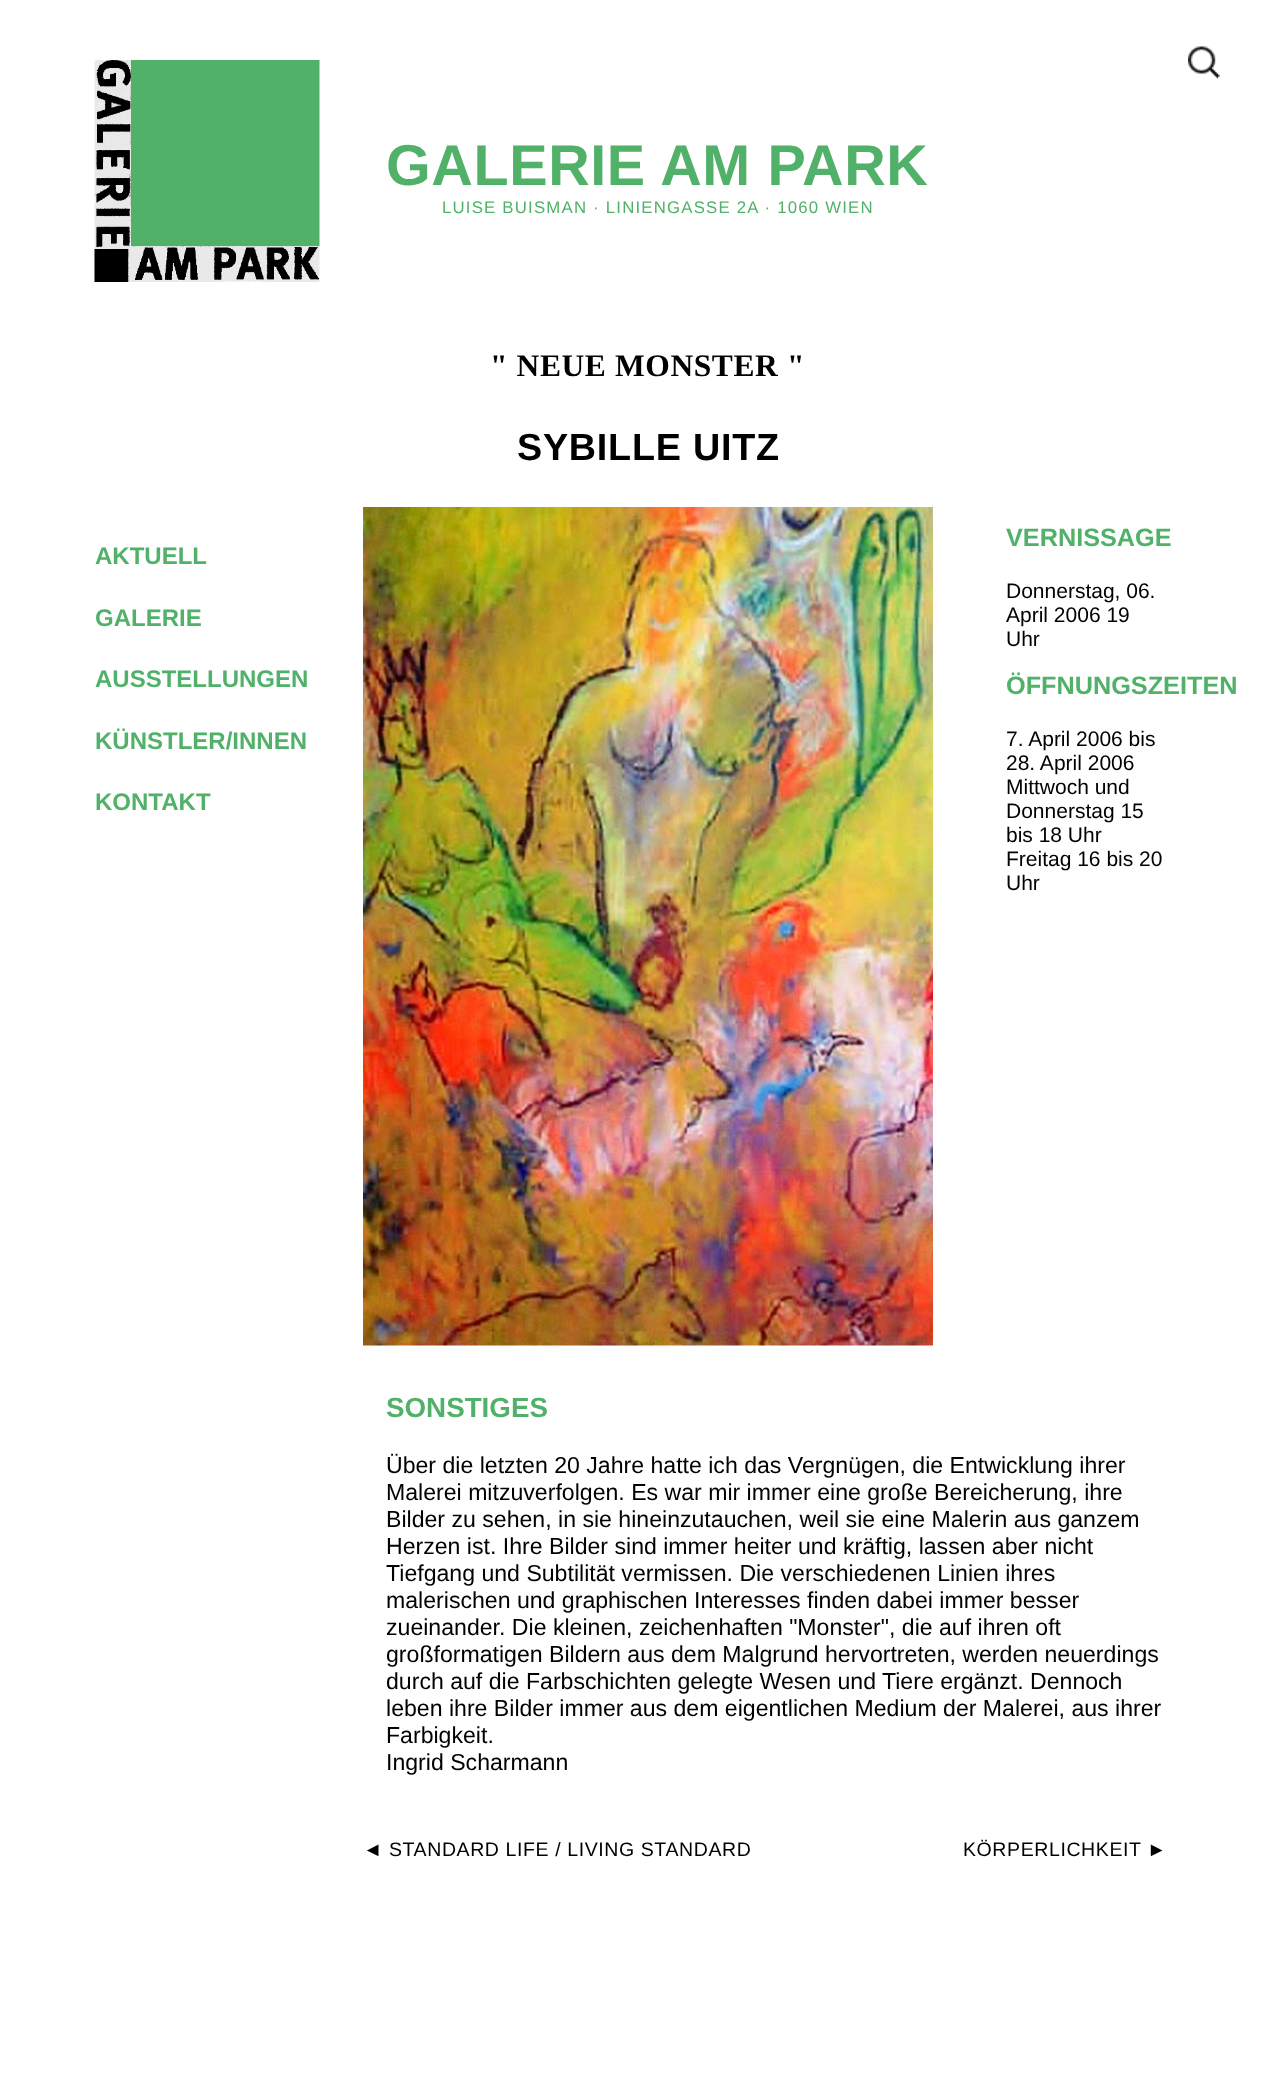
async function draw(canvas) {
	canvas.width = 1261;
	canvas.height = 2078;
	const c = canvas.getContext('2d');
	c.miterLimit = 4;
	c.fontKerning = 'normal';
	async function loadImage(src) {
		const img = new Image();
		img.src = src;
		await img.decode();
		return img;
	}

	c.fillStyle = '#fff';
	c.fillRect(0, 0, 1261, 2078);
	c.drawImage(await loadImage('img1.png'), 1188, 46, 32, 33);
	c.letterSpacing = '0.6px';
	c.font = 'bold 57.5px Liberation Sans';
	c.fillStyle = '#51b169';
	c.fillText('GALERIE AM PARK', 386, 185);
	c.letterSpacing = '1.2px';
	c.font = '16.8px Liberation Sans';
	c.fillText('LUISE BUISMAN · LINIENGASSE 2A · 1060 WIEN', 442, 213);
	c.drawImage(await loadImage('img2.png'), 94, 60, 226, 222);
	c.letterSpacing = '0px';
	c.font = 'bold 24px Liberation Sans';
	for (const [text, x, y] of [
		['AKTUELL', 95, 564],
		['GALERIE', 95, 626],
		['AUSSTELLUNGEN', 95, 687],
		['KÜNSTLER/INNEN', 95, 749],
		['KONTAKT', 95, 810],
	]) {
		c.fillText(text, x, y);
	}
	c.letterSpacing = '0.6px';
	c.font = 'bold 31.5px Liberation Serif';
	c.fillStyle = '#000';
	c.fillText('" NEUE MONSTER "', 490, 376);
	c.letterSpacing = '0.75px';
	c.font = 'bold 37.75px Liberation Sans';
	c.fillText('SYBILLE UITZ', 517, 460);
	c.drawImage(await loadImage('img3.png'), 363, 507, 570, 839);
	c.letterSpacing = '0px';
	c.font = 'bold 25.25px Liberation Sans';
	c.fillStyle = '#51b169';
	c.fillText('VERNISSAGE', 1006, 546);
	c.font = '21px Liberation Sans';
	c.fillStyle = '#000';
	for (const [text, x, y] of [
		['Donnerstag, 06.', 1006, 598],
		['April 2006 19', 1006, 622],
		['Uhr', 1006, 646],
	]) {
		c.fillText(text, x, y);
	}
	c.font = 'bold 25.25px Liberation Sans';
	c.fillStyle = '#51b169';
	c.fillText('ÖFFNUNGSZEITEN', 1006, 694);
	c.font = '21px Liberation Sans';
	c.fillStyle = '#000';
	for (const [text, x, y] of [
		['7. April 2006 bis', 1006, 746],
		['28. April 2006', 1006, 770],
		['Mittwoch und', 1006, 794],
		['Donnerstag 15', 1006, 818],
		['bis 18 Uhr', 1006, 842],
		['Freitag 16 bis 20', 1006, 866],
		['Uhr', 1006, 890],
	]) {
		c.fillText(text, x, y);
	}
	c.font = 'bold 27.75px Liberation Sans';
	c.fillStyle = '#51b169';
	c.fillText('SONSTIGES', 386, 1417);
	c.font = '23.1px Liberation Sans';
	c.fillStyle = '#000';
	for (const [text, x, y] of [
		['Über die letzten 20 Jahre hatte ich das Vergnügen, die Entwicklung ihrer', 386, 1473],
		['Malerei mitzuverfolgen. Es war mir immer eine große Bereicherung, ihre', 386, 1500],
		['Bilder zu sehen, in sie hineinzutauchen, weil sie eine Malerin aus ganzem', 386, 1527],
		['Herzen ist. Ihre Bilder sind immer heiter und kräftig, lassen aber nicht', 386, 1554],
		['Tiefgang und Subtilität vermissen. Die verschiedenen Linien ihres', 386, 1581],
		['malerischen und graphischen Interesses finden dabei immer besser', 386, 1608],
		['zueinander. Die kleinen, zeichenhaften "Monster", die auf ihren oft', 386, 1635],
		['großformatigen Bildern aus dem Malgrund hervortreten, werden neuerdings', 386, 1662],
		['durch auf die Farbschichten gelegte Wesen und Tiere ergänzt. Dennoch', 386, 1689],
		['leben ihre Bilder immer aus dem eigentlichen Medium der Malerei, aus ihrer', 386, 1716],
		['Farbigkeit.', 386, 1743],
		['Ingrid Scharmann', 386, 1770],
	]) {
		c.fillText(text, x, y);
	}
	c.letterSpacing = '0.6px';
	c.font = '19.5px Liberation Sans';
	for (const [text, x, y] of [
		['◄ STANDARD LIFE / LIVING STANDARD', 363, 1856],
		['KÖRPERLICHKEIT', 963, 1856],
		['►', 1147, 1856],
	]) {
		c.fillText(text, x, y);
	}
}

draw(document.querySelector('canvas'));
